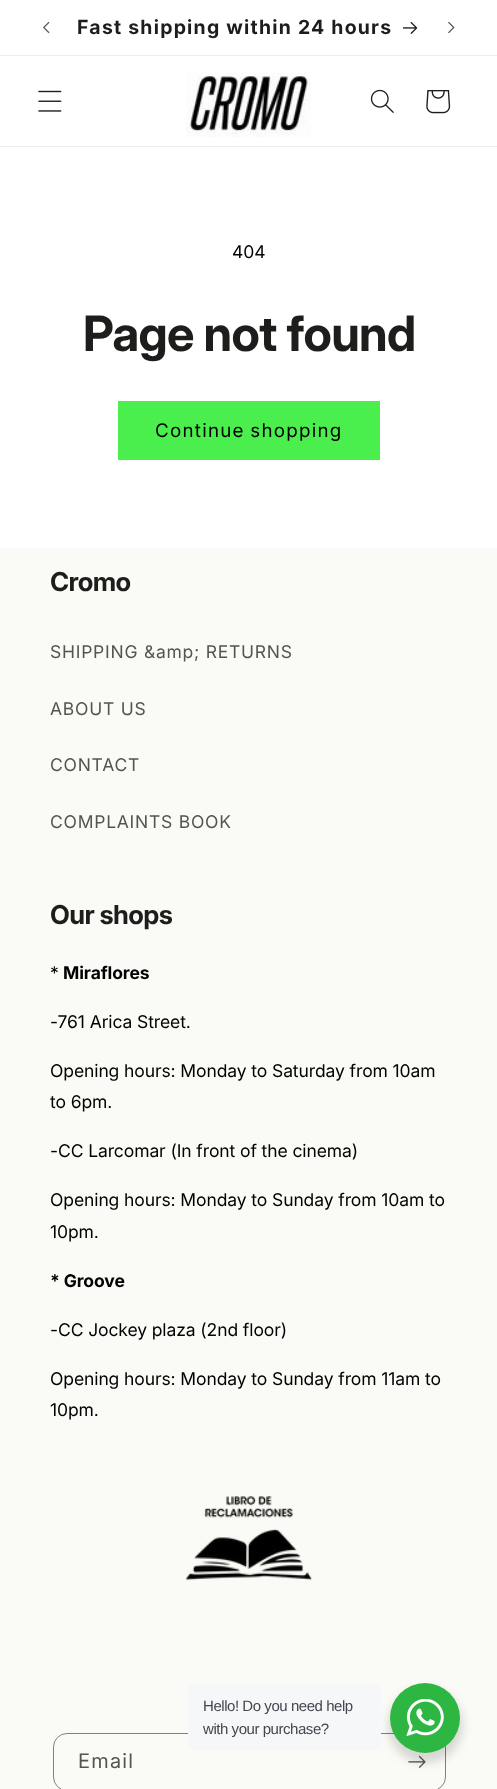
async function draw(canvas) {
	canvas.width = 497;
	canvas.height = 1789;
	const c = canvas.getContext('2d');
	c.miterLimit = 4;
	c.fontKerning = 'normal';
	async function loadImage(src) {
		const img = new Image();
		img.src = src;
		await img.decode();
		return img;
	}

	c.fillStyle = '#fff';
	c.fillRect(0, 0, 497, 1789);
	c.fillStyle = '#ededed';
	c.fillRect(0, 55, 497, 1);
	c.drawImage(await loadImage('img1.png'), 43, 21, 7, 13);
	c.letterSpacing = '1.25px';
	c.font = 'bold 19.5px "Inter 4"';
	c.fillStyle = '#1d1d1b';
	c.fillText('Fast shipping within 24 hours', 77, 34);
	c.drawImage(await loadImage('img2.png'), 403, 21, 15, 13);
	c.drawImage(await loadImage('img3.png'), 448, 21, 7, 13);
	c.fillStyle = '#ededed';
	c.fillRect(0, 146, 497, 1);
	c.drawImage(await loadImage('img4.png'), 38, 90, 24, 22);
	c.drawImage(await loadImage('img5.png'), 186, 73, 125, 64);
	c.drawImage(await loadImage('img6.png'), 370, 89, 24, 24);
	c.drawImage(await loadImage('img7.png'), 426, 90, 25, 24);
	c.letterSpacing = '-0.1px';
	c.font = '17.5px Inter';
	c.fillStyle = '#000';
	c.fillText('404', 232, 258);
	c.letterSpacing = '-0.6px';
	c.font = 'bold 48.75px Inter';
	c.fillStyle = '#1d1d1b';
	c.fillText('Page not found', 83, 351);
	c.fillStyle = '#4bef4d';
	c.fillRect(118, 401, 262, 59);
	c.letterSpacing = '1.25px';
	c.wordSpacing = '-1px';
	c.font = '18.75px Inter';
	c.fillStyle = '#000';
	c.fillText('Continue shopping', 155, 437);
	c.fillStyle = '#fafaf6';
	c.fillRect(0, 548, 497, 1241);
	c.letterSpacing = '-0.6px';
	c.wordSpacing = '0px';
	c.font = 'bold 26px "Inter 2"';
	c.fillStyle = '#1d1d1b';
	c.fillText('Cromo', 50, 591);
	c.letterSpacing = '0.75px';
	c.font = '17.5px Inter';
	c.fillStyle = '#545452';
	for (const [text, x, y] of [
		['SHIPPING &amp; RETURNS', 50, 658],
		['ABOUT US', 50, 715],
		['CONTACT', 50, 771],
		['COMPLAINTS BOOK', 50, 828],
	]) {
		c.fillText(text, x, y);
	}
	c.letterSpacing = '-0.6px';
	c.font = 'bold 26px "Inter 2"';
	c.fillStyle = '#1d1d1b';
	c.fillText('Our shops', 50, 924);
	c.letterSpacing = '-0.1px';
	c.font = '17.5px Inter';
	c.fillStyle = '#000';
	c.fillText('*', 50, 979);
	c.font = 'bold 17.5px "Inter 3"';
	c.fillText('Miraflores', 63, 979);
	c.font = '17.5px Inter';
	for (const [text, x, y] of [
		['-761 Arica Street.', 50, 1028],
		['Opening hours: Monday to Saturday from 10am', 50, 1077],
		['to 6pm.', 50, 1108],
		['-CC Larcomar (In front of the cinema)', 50, 1157],
		['Opening hours: Monday to Sunday from 10am to', 50, 1206],
		['10pm.', 50, 1238],
	]) {
		c.fillText(text, x, y);
	}
	c.font = 'bold 17.5px "Inter 3"';
	c.fillText('* Groove', 50, 1287);
	c.font = '17.5px Inter';
	for (const [text, x, y] of [
		['-CC Jockey plaza (2nd floor)', 50, 1336],
		['Opening hours: Monday to Sunday from 11am to', 50, 1385],
		['10pm.', 50, 1416],
	]) {
		c.fillText(text, x, y);
	}
	c.drawImage(await loadImage('img8.png'), 186, 1496, 126, 85);
	c.beginPath();
	c.roundRect(53.5, 1733.5, 392, 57, 13.5);
	c.strokeStyle = '#80807e';
	c.stroke();
	c.letterSpacing = '1.25px';
	c.font = '20px "Inter 2"';
	c.fillStyle = '#545452';
	c.fillText('Email', 78, 1768);
	c.drawImage(await loadImage('img9.png'), 408, 1755, 18, 13);
	c.fillStyle = '#00000024';
	c.filter = 'blur(5px)';
	c.beginPath();
	c.roundRect(388, 1688, 75, 75, 37.5);
	c.fill();
	c.filter = 'none';
	c.fillStyle = '#f5f7f9';
	c.beginPath();
	c.roundRect(188, 1685, 193, 65, 5);
	c.fill();
	c.letterSpacing = '-0.45px';
	c.font = '15px Liberation Sans';
	c.fillStyle = '#43474e';
	c.fillText('Hello! Do you need help', 203, 1711);
	c.fillText('with your purchase?', 203, 1734);
	c.fillStyle = '#2db742';
	c.beginPath();
	c.arc(425, 1718, 35, 0, 2 * Math.PI);
	c.fill();
	c.drawImage(await loadImage('img10.png'), 406, 1699, 38, 37);
}

draw(document.querySelector('canvas'));
